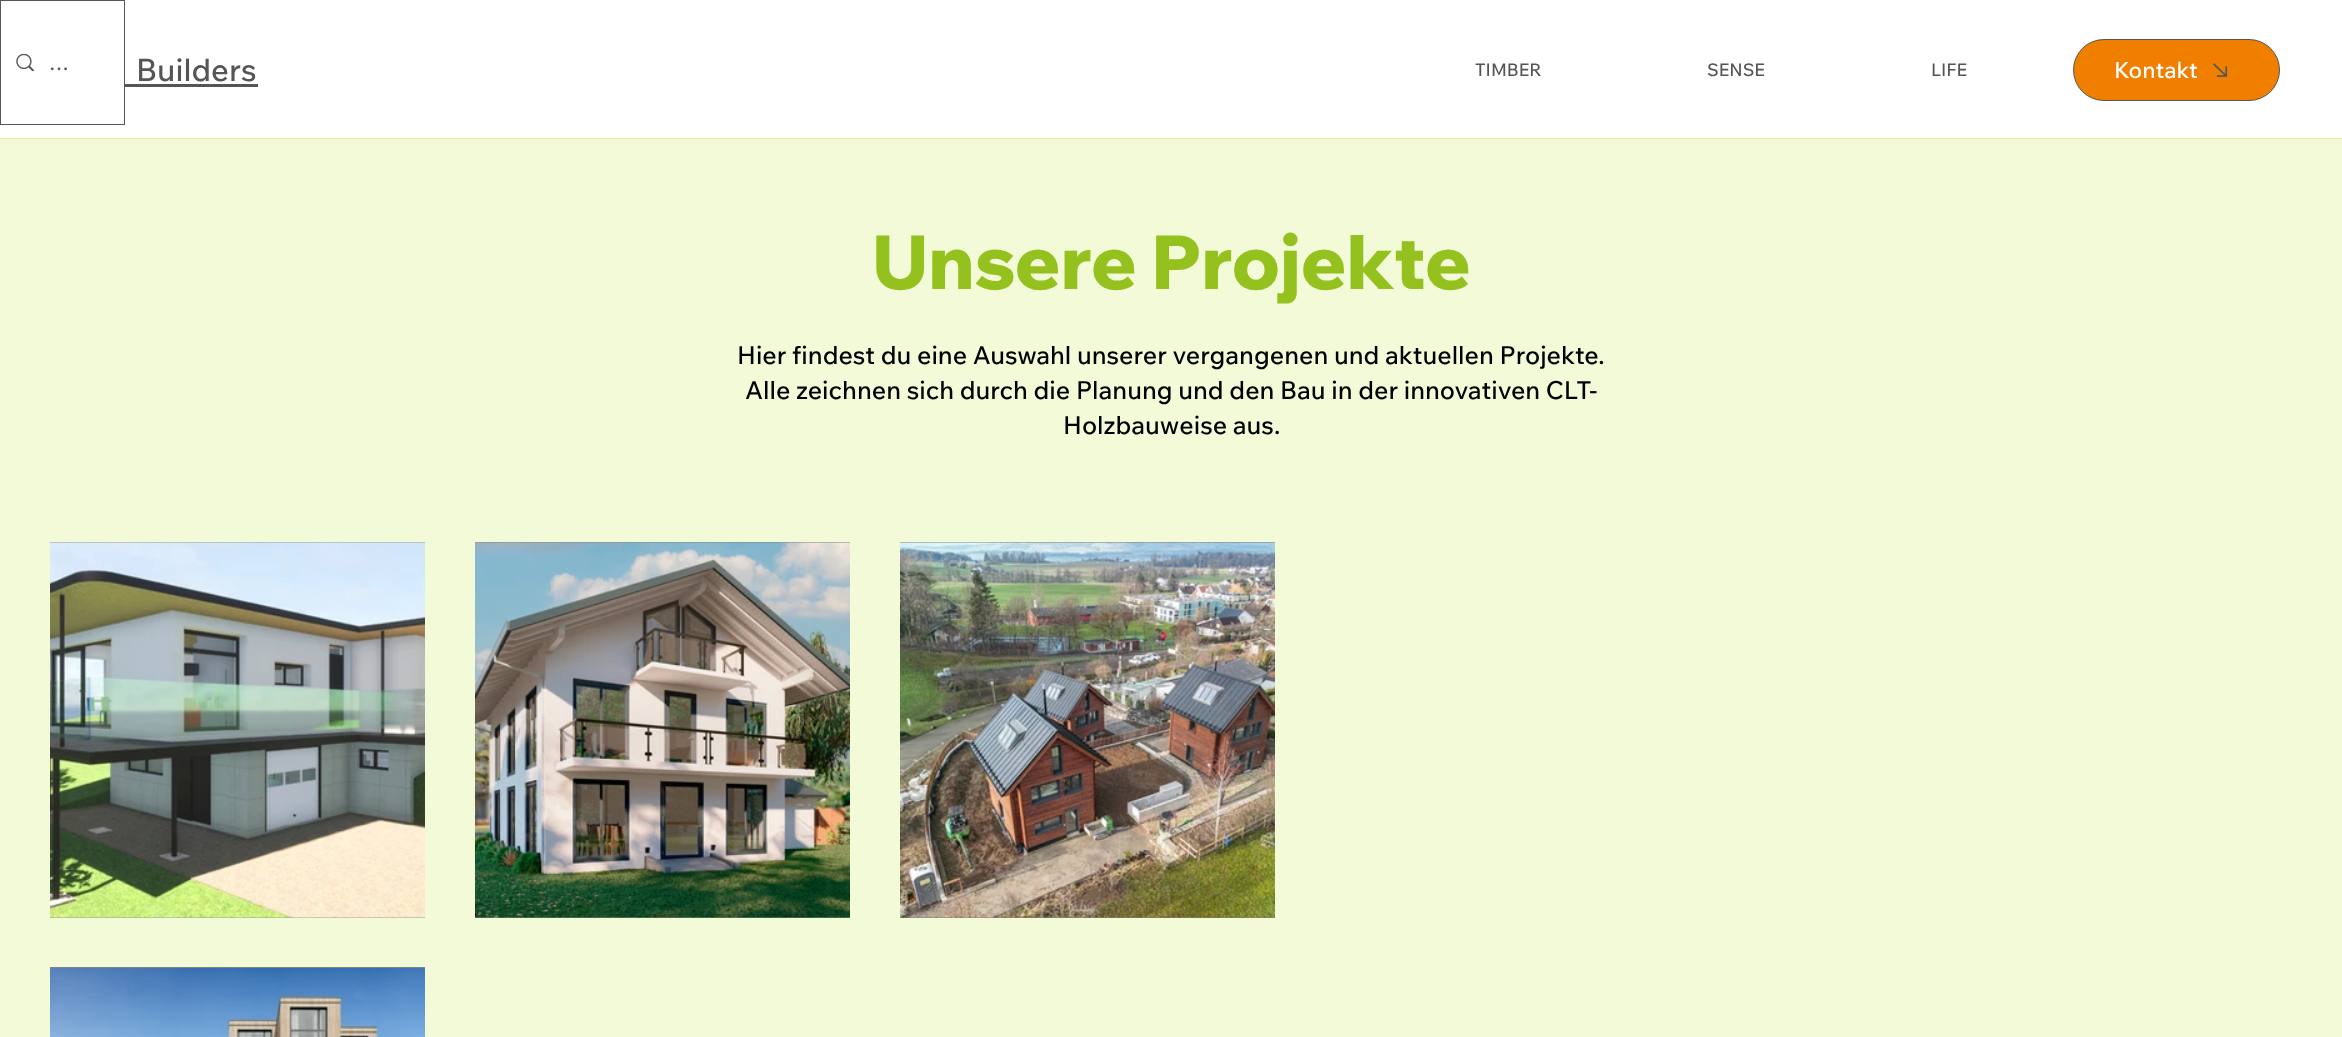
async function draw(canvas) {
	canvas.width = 2342;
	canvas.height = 1037;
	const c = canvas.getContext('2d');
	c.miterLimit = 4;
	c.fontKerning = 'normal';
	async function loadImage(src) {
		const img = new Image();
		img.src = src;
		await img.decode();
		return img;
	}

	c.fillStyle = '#fff';
	c.fillRect(0, 0, 2342, 1037);
	c.strokeStyle = '#555';
	c.strokeRect(0.5, 0.5, 124, 124);
	c.drawImage(await loadImage('img1.png'), 16, 54, 18, 17);
	c.font = '500 20px Wix Madefor Text';
	c.fillStyle = '#555';
	c.fillText('…', 49, 70);
	c.font = '500 31px Wix Madefor Text';
	c.fillText('Builders', 136, 81);
	c.fillRect(125, 84, 133, 3);
	c.font = '500 17.5px Wix Madefor Text';
	for (const [text, x, y] of [
		['TIMBER', 1475, 76],
		['SENSE', 1707, 76],
		['LIFE', 1931, 76],
	]) {
		c.fillText(text, x, y);
	}
	c.fillStyle = '#f07f00';
	c.beginPath();
	c.roundRect(2073.5, 39.5, 206, 61, 30.5);
	c.fill();
	c.stroke();
	c.font = '500 22.5px Wix Madefor Text';
	c.fillStyle = '#fff';
	c.fillText('Kontakt', 2114, 78);
	c.drawImage(await loadImage('img2.png'), 2213, 63, 15, 14);
	c.fillStyle = '#d9eaa9';
	c.fillRect(0, 138, 2342, 1);
	c.fillStyle = '#f2fad8';
	c.fillRect(0, 139, 2342, 898);
	c.font = '800 75px Wix Madefor Display';
	c.fillStyle = '#95c11f';
	c.fillText('Unsere Projekte', 872, 289);
	c.font = '500 25px Wix Madefor Text';
	c.fillStyle = '#000';
	for (const [text, x, y] of [
		['Hier findest du eine Auswahl unserer vergangenen und aktuellen Projekte.', 737, 364],
		['Alle zeichnen sich durch die Planung und den Bau in der innovativen CLT-', 745, 399],
		['Holzbauweise aus.', 1063, 434],
	]) {
		c.fillText(text, x, y);
	}
	c.fillStyle = '#98a396';
	c.fillRect(50, 542, 375, 376);
	c.drawImage(await loadImage('img3.png'), 50, 542, 375, 376);
	c.fillStyle = '#82867e';
	c.fillRect(475, 542, 375, 376);
	c.drawImage(await loadImage('img4.png'), 475, 542, 375, 376);
	c.fillStyle = '#868271';
	c.fillRect(900, 542, 375, 376);
	c.drawImage(await loadImage('img5.png'), 900, 542, 375, 376);
	c.fillStyle = '#798487';
	c.fillRect(50, 967, 375, 1);
	c.drawImage(await loadImage('img6.png'), 50, 968, 375, 69);
}

draw(document.querySelector('canvas'));
